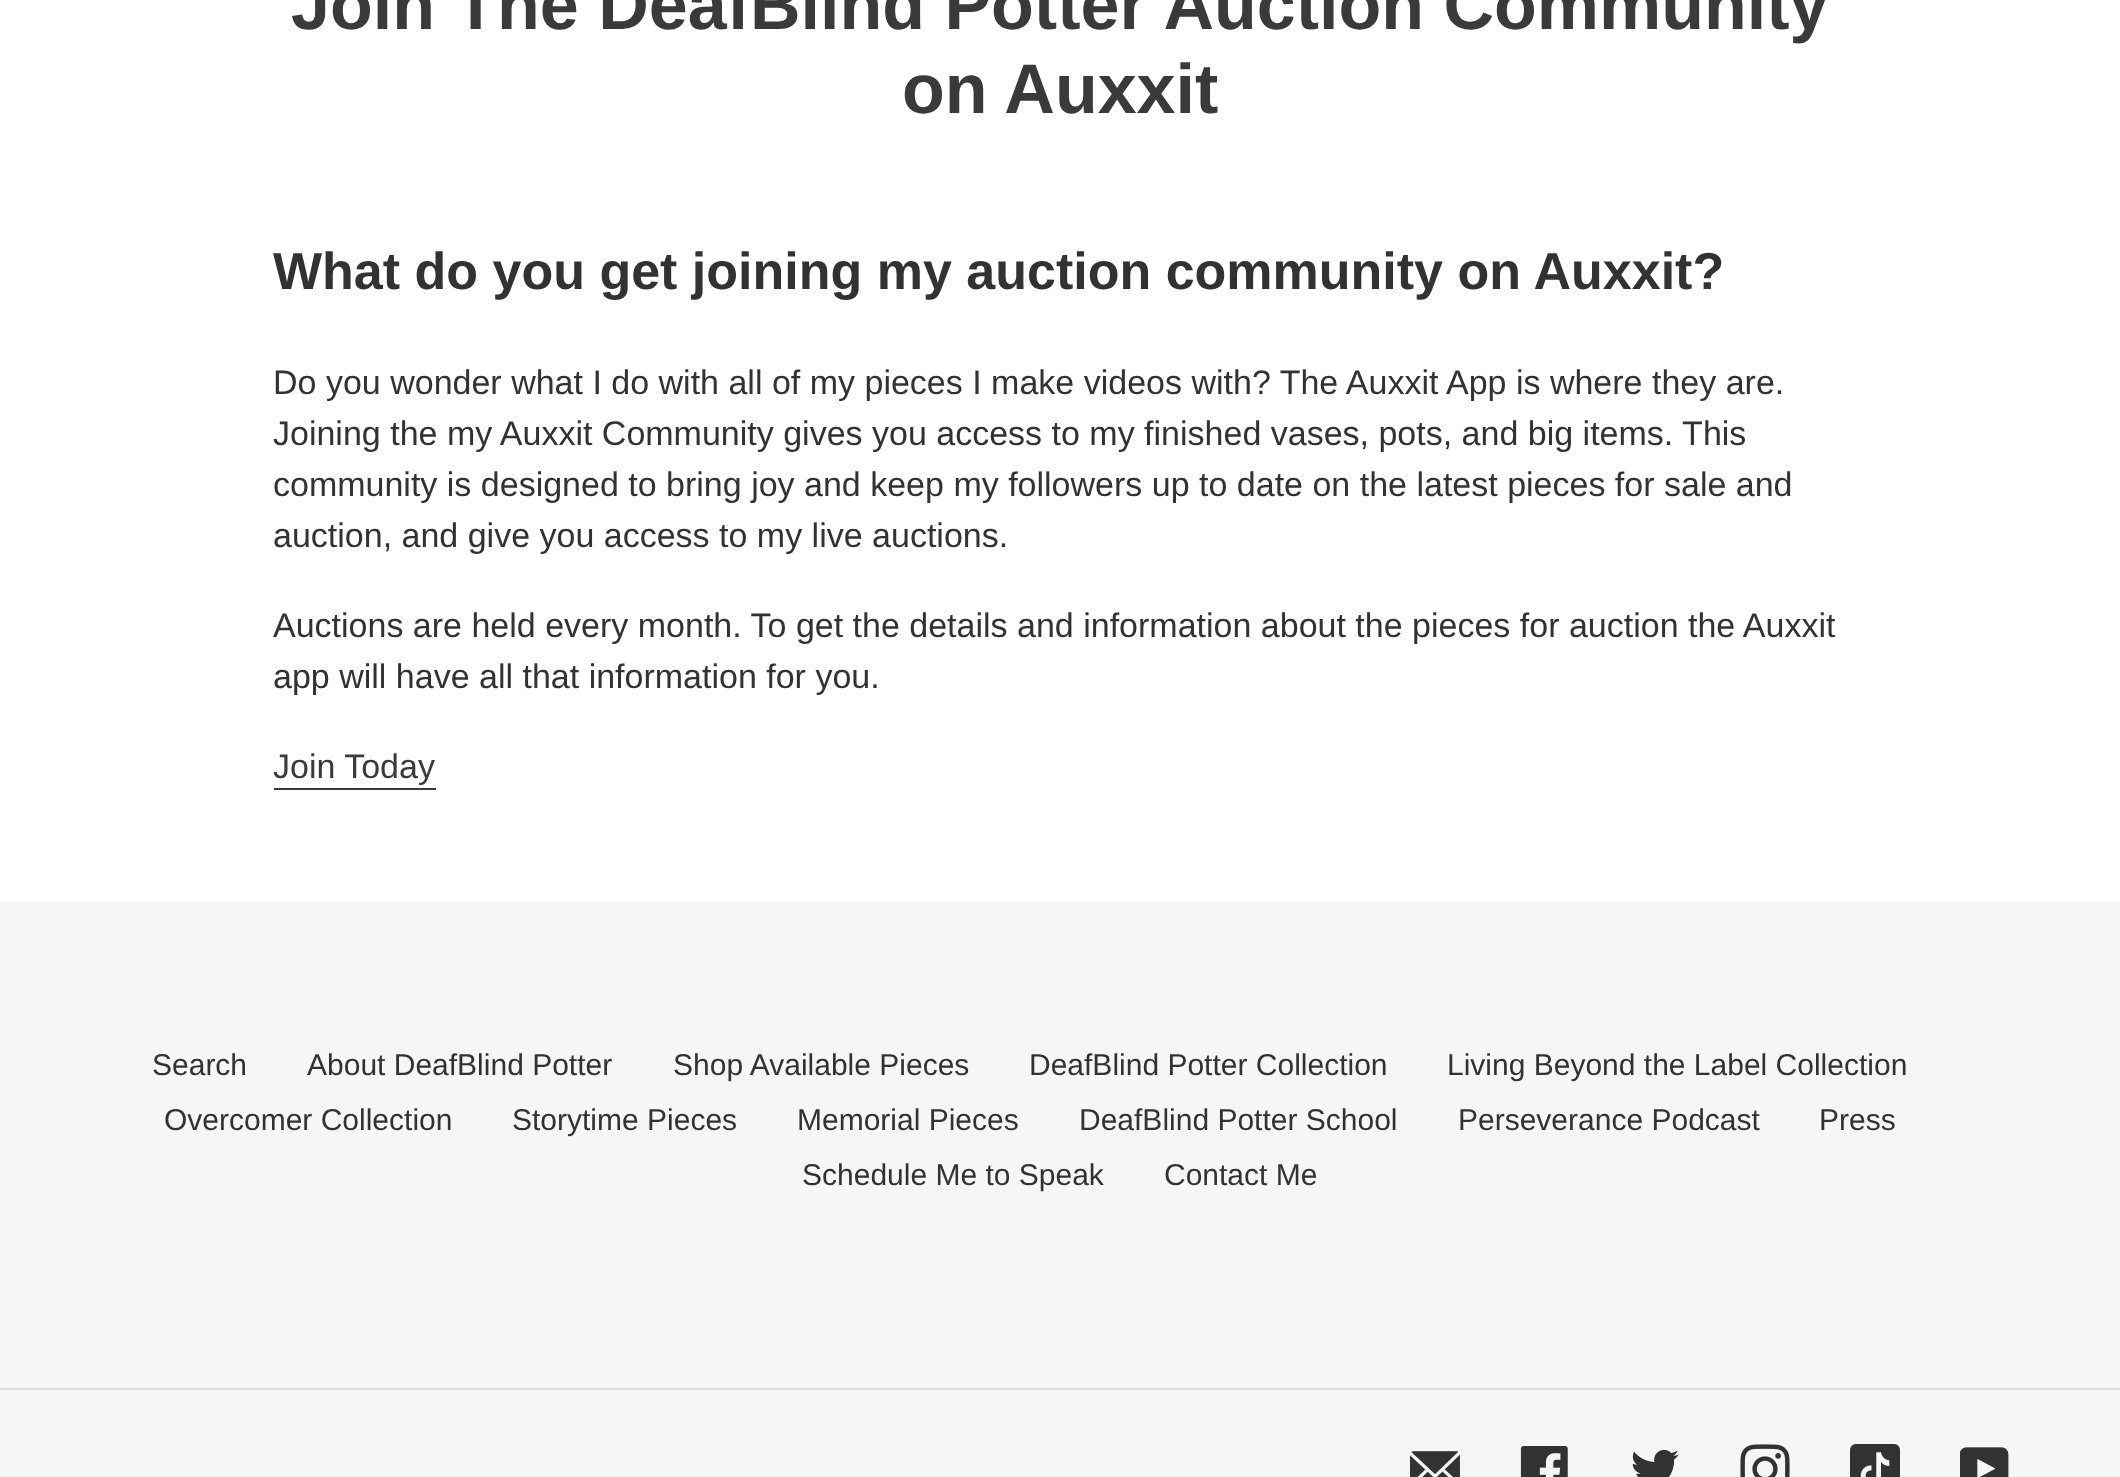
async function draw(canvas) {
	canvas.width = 2120;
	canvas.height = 1477;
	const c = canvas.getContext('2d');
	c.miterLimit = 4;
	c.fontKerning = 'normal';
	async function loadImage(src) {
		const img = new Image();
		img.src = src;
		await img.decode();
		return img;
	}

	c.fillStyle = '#fff';
	c.fillRect(0, 0, 2120, 1477);
	c.font = 'bold 70px Liberation Sans';
	c.fillStyle = '#3a3a3a';
	c.fillText('Join The DeafBlind Potter Auction Community', 291, 29);
	c.fillText('on Auxxit', 902, 113);
	c.font = 'bold 52px Liberation Sans';
	c.fillStyle = '#333232';
	c.fillText('What do you get joining my auction community on Auxxit?', 273, 289);
	c.font = '34px Liberation Sans';
	for (const [text, x, y] of [
		['Do you wonder what I do with all of my pieces I make videos with? The Auxxit App is where they are.', 273, 394],
		['Joining the my Auxxit Community gives you access to my finished vases, pots, and big items. This', 273, 445],
		['community is designed to bring joy and keep my followers up to date on the latest pieces for sale and', 273, 496],
		['auction, and give you access to my live auctions.', 273, 547],
		['Auctions are held every month. To get the details and information about the pieces for auction the Auxxit', 273, 637],
		['app will have all that information for you.', 273, 688],
	]) {
		c.fillText(text, x, y);
	}
	c.fillStyle = '#3a3a3a';
	c.fillText('Join Today', 273, 778);
	c.fillRect(274, 788, 162, 2);
	c.fillStyle = '#f6f6f6';
	c.fillRect(0, 902, 2120, 575);
	c.font = '30px Liberation Sans';
	c.fillStyle = '#333232';
	for (const [text, x, y] of [
		['Search', 152, 1075],
		['About DeafBlind Potter', 307, 1075],
		['Shop Available Pieces', 673, 1075],
		['DeafBlind Potter Collection', 1029, 1075],
		['Living Beyond the Label Collection', 1447, 1075],
		['Overcomer Collection', 164, 1130],
		['Storytime Pieces', 512, 1130],
		['Memorial Pieces', 797, 1130],
		['DeafBlind Potter School', 1079, 1130],
		['Perseverance Podcast', 1458, 1130],
		['Press', 1819, 1130],
		['Schedule Me to Speak', 802, 1185],
		['Contact Me', 1164, 1185],
	]) {
		c.fillText(text, x, y);
	}
	c.fillStyle = '#ddd';
	c.fillRect(0, 1388, 2120, 2);
	c.drawImage(await loadImage('img1.png'), 1410, 1451, 50, 26);
	c.drawImage(await loadImage('img2.png'), 1520, 1446, 48, 31);
	c.drawImage(await loadImage('img3.png'), 1632, 1449, 47, 28);
	c.drawImage(await loadImage('img4.png'), 1740, 1444, 50, 33);
	c.drawImage(await loadImage('img5.png'), 1850, 1444, 50, 33);
	c.drawImage(await loadImage('img6.png'), 1960, 1447, 49, 30);
}

draw(document.querySelector('canvas'));
